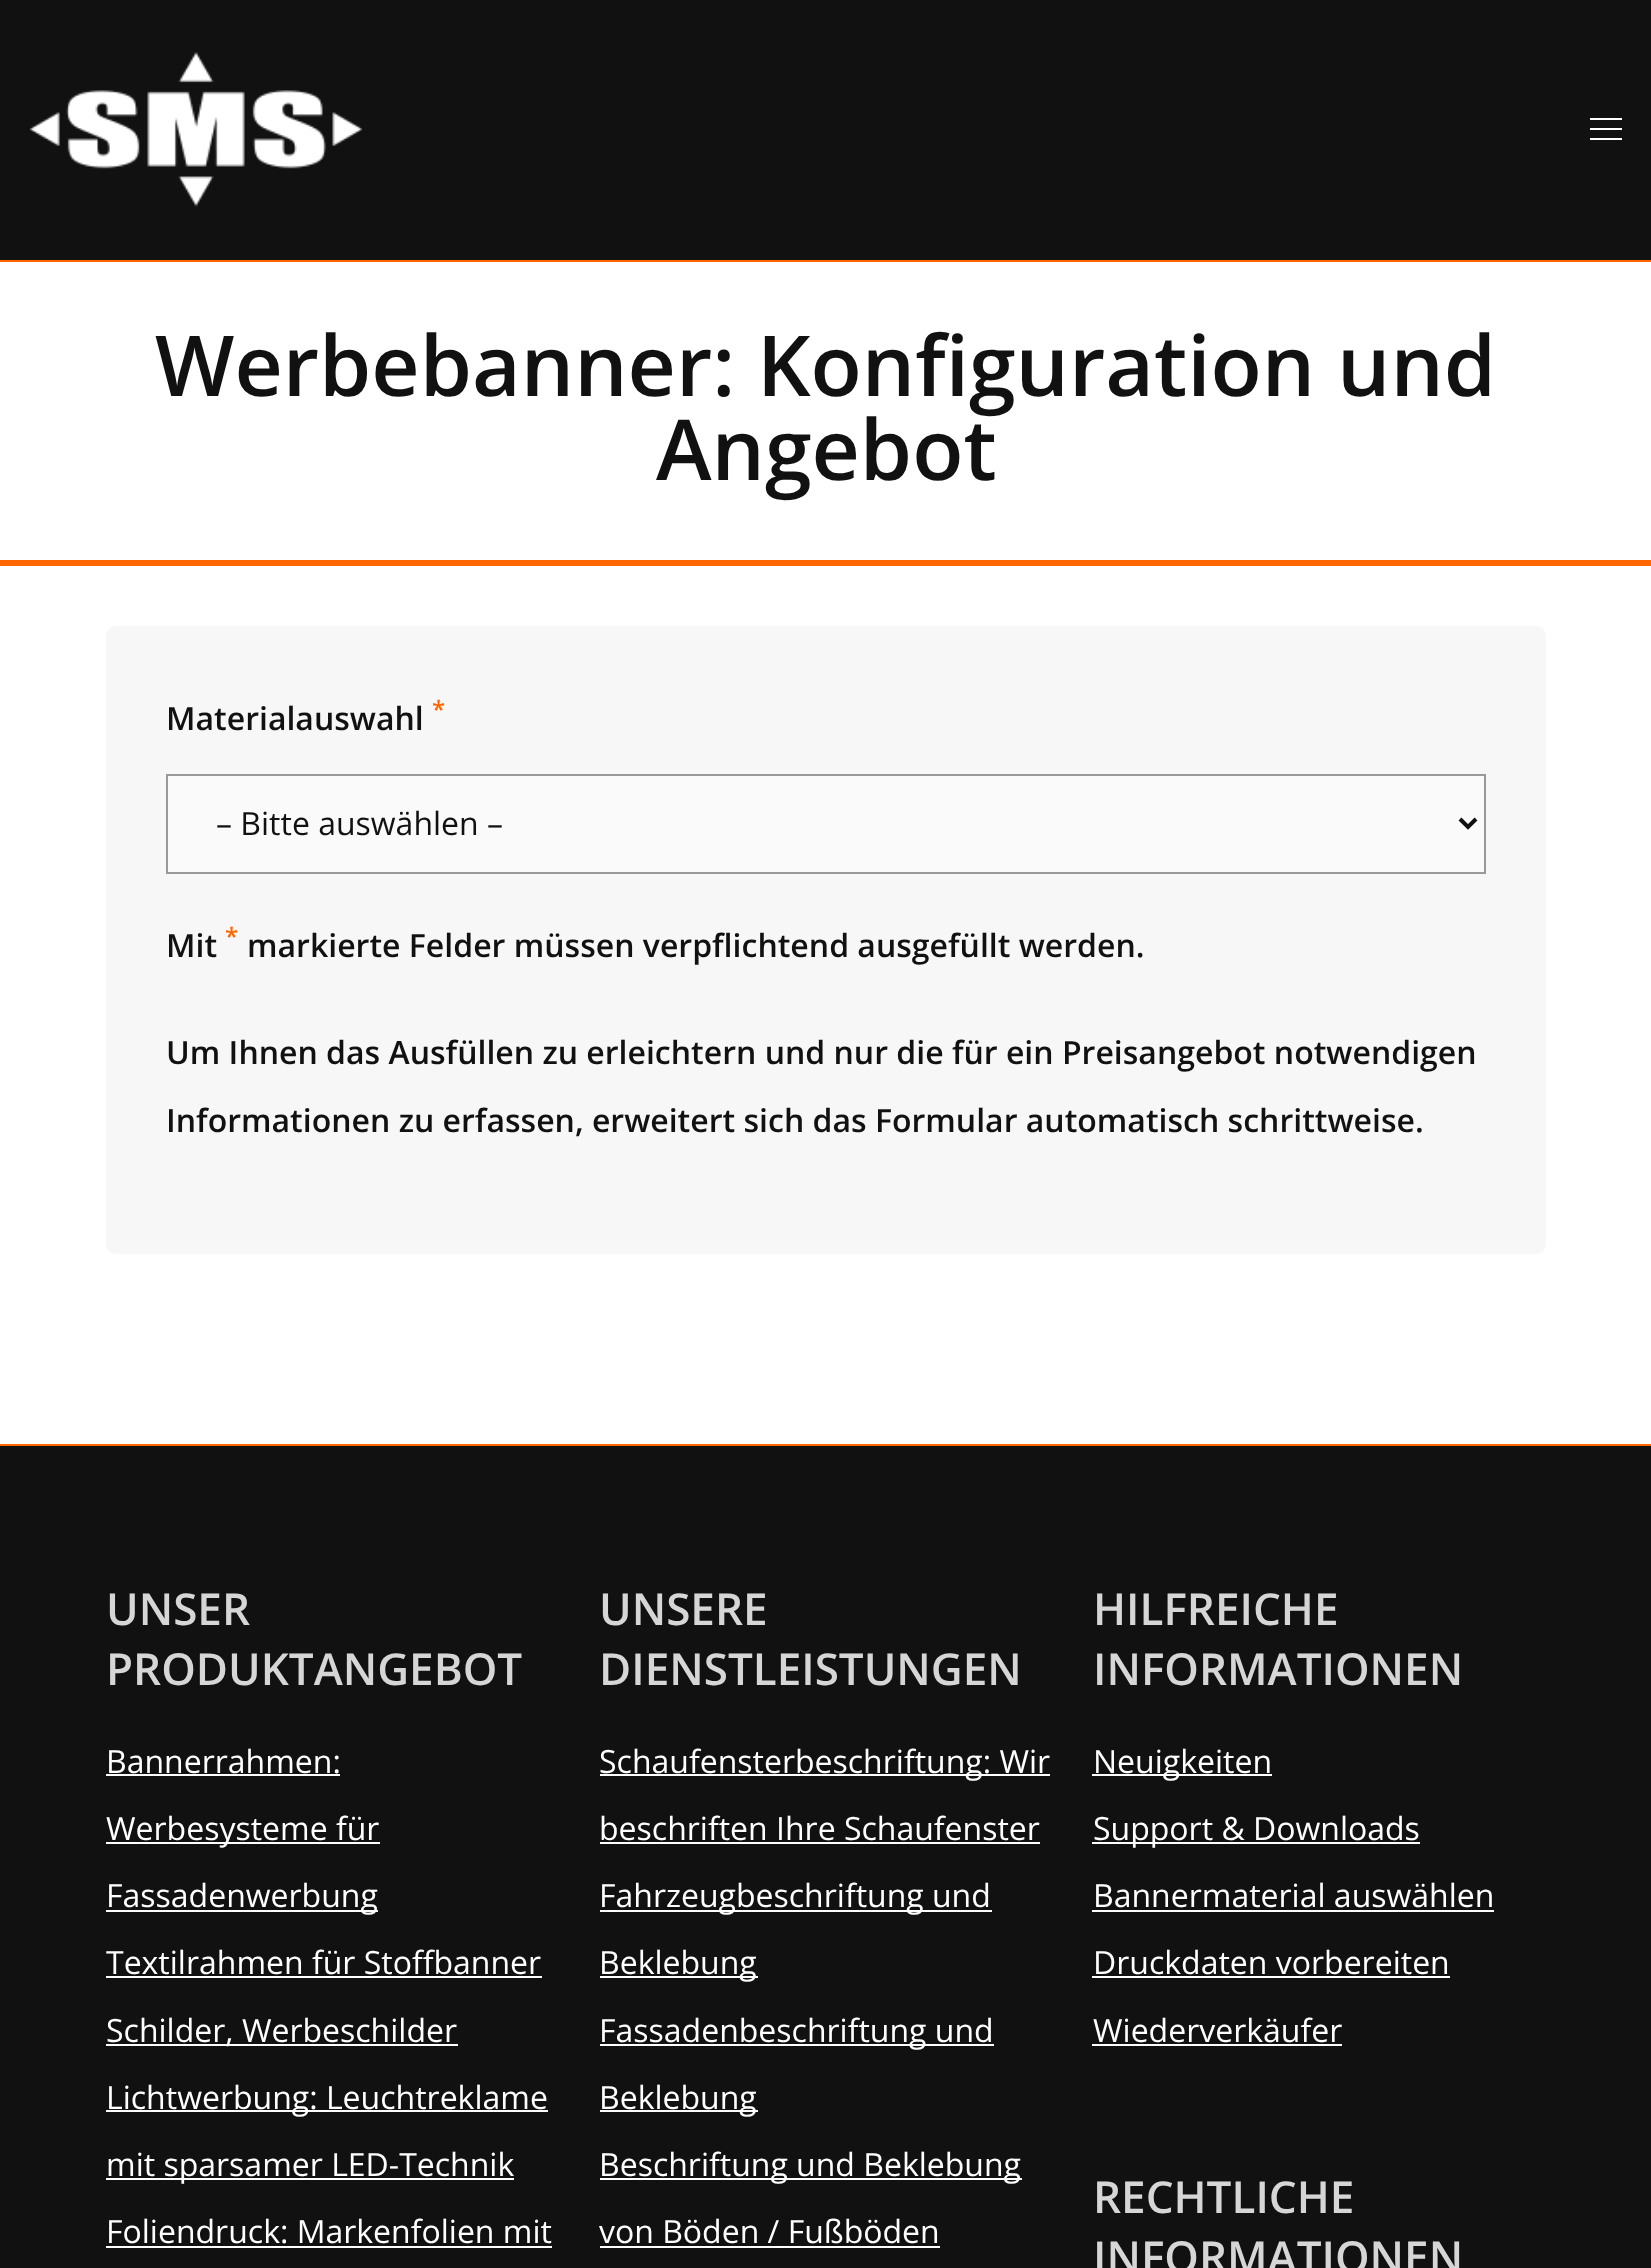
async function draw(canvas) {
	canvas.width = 1651;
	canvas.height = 2268;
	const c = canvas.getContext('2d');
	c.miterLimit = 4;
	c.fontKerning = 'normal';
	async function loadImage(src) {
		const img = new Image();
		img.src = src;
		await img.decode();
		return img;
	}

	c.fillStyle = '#fff';
	c.fillRect(0, 0, 1651, 2268);
	c.fillStyle = '#111';
	c.fillRect(0, 0, 1651, 260);
	c.fillStyle = '#f60';
	c.fillRect(0, 260, 1651, 2);
	c.drawImage(await loadImage('img1.png'), 30, 52, 332, 155);
	for (const [x, y, w, h, color] of [
		[1590, 118, 32, 2, '#fff'],
		[1590, 128, 32, 2, '#fff'],
		[1590, 138, 32, 2, '#fff'],
	]) {
		c.fillStyle = color;
		c.fillRect(x, y, w, h);
	}
	c.font = '600 84px Open Sans';
	c.fillStyle = '#111';
	c.fillText('Werbebanner: Konfiguration und', 155, 396);
	c.fillText('Angebot', 656, 480);
	c.fillStyle = '#f60';
	c.fillRect(0, 560, 1651, 6);
	c.fillStyle = '#f7f7f7';
	c.beginPath();
	c.roundRect(106, 626, 1440, 628, 10);
	c.fill();
	c.font = '600 32px Open Sans';
	c.fillStyle = '#111';
	c.fillText('Materialauswahl', 166, 730);
	c.font = '600 24px Open Sans';
	c.fillStyle = '#f60';
	c.fillText('*', 432, 718);
	c.fillStyle = '#fafafa';
	c.beginPath();
	c.rect(167, 775, 1318, 98);
	c.fill();
	c.strokeStyle = '#999';
	c.lineWidth = 2;
	c.stroke();
	c.beginPath();
	c.moveTo(1460, 819);
	c.lineTo(1468, 827);
	c.lineTo(1476, 819);
	c.strokeStyle = '#111';
	c.lineWidth = 4;
	c.stroke();
	c.font = '32px Open Sans';
	c.fillStyle = '#111';
	c.fillText('– Bitte auswählen –', 216, 835);
	c.font = '600 32px Open Sans';
	c.fillText('Mit', 166, 957);
	c.font = '600 24px Open Sans';
	c.fillStyle = '#f60';
	c.fillText('*', 225, 945);
	c.font = '600 32px Open Sans';
	c.fillStyle = '#111';
	for (const [text, x, y] of [
		['markierte Felder müssen verpflichtend ausgefüllt werden.', 247, 957],
		['Um Ihnen das Ausfüllen zu erleichtern und nur die für ein Preisangebot notwendigen', 166, 1064],
		['Informationen zu erfassen, erweitert sich das Formular automatisch schrittweise.', 166, 1132],
	]) {
		c.fillText(text, x, y);
	}
	c.fillRect(0, 1446, 1651, 822);
	c.fillStyle = '#f60';
	c.fillRect(0, 1444, 1651, 2);
	c.font = '600 44px Open Sans';
	c.fillStyle = '#d6d6d6';
	c.fillText('UNSER', 106, 1625);
	c.fillText('PRODUKTANGEBOT', 106, 1685);
	c.font = '32px Open Sans';
	c.fillStyle = '#fff';
	c.fillText('Bannerrahmen:', 106, 1773);
	c.fillRect(106, 1774, 234, 2);
	c.fillRect(106, 1842, 274, 2);
	c.fillText('Werbesysteme für', 106, 1840);
	c.fillRect(106, 1910, 272, 2);
	c.fillText('Fassadenwerbung', 106, 1907);
	c.fillText('Textilrahmen für Stoffbanner', 106, 1974);
	c.fillRect(106, 1976, 436, 2);
	c.fillRect(106, 2044, 352, 2);
	c.fillText('Schilder, Werbeschilder', 106, 2042);
	c.fillRect(106, 2110, 442, 2);
	c.fillText('Lichtwerbung: Leuchtreklame', 106, 2109);
	c.fillRect(106, 2178, 408, 2);
	c.fillText('mit sparsamer LED-Technik', 106, 2176);
	c.fillText('Foliendruck: Markenfolien mit', 106, 2243);
	c.fillRect(106, 2246, 446, 2);
	c.font = '600 44px Open Sans';
	c.fillStyle = '#d6d6d6';
	c.fillText('UNSERE', 599, 1625);
	c.fillText('DIENSTLEISTUNGEN', 599, 1685);
	c.fillStyle = '#fff';
	c.fillRect(600, 1774, 450, 2);
	c.font = '32px Open Sans';
	c.fillText('Schaufensterbeschriftung: Wir', 599, 1773);
	c.fillText('beschriften Ihre Schaufenster', 599, 1840);
	c.fillRect(600, 1842, 440, 2);
	c.fillRect(600, 1910, 392, 2);
	c.fillText('Fahrzeugbeschriftung und', 599, 1907);
	c.fillRect(600, 1976, 158, 2);
	c.fillText('Beklebung', 599, 1974);
	c.fillRect(600, 2044, 394, 2);
	c.fillText('Fassadenbeschriftung und', 599, 2042);
	c.fillRect(600, 2110, 158, 2);
	c.fillText('Beklebung', 599, 2109);
	c.fillRect(600, 2178, 422, 2);
	c.fillText('Beschriftung und Beklebung', 599, 2176);
	c.fillText('von Böden / Fußböden', 599, 2243);
	c.fillRect(600, 2246, 340, 2);
	c.font = '600 44px Open Sans';
	c.fillStyle = '#d6d6d6';
	c.fillText('HILFREICHE', 1093, 1625);
	c.fillText('INFORMATIONEN', 1093, 1685);
	c.fillStyle = '#fff';
	c.fillRect(1092, 1774, 180, 2);
	c.font = '32px Open Sans';
	c.fillText('Neuigkeiten', 1093, 1773);
	c.fillRect(1092, 1842, 328, 2);
	c.fillText('Support & Downloads', 1093, 1840);
	c.fillText('Bannermaterial auswählen', 1093, 1907);
	c.fillRect(1092, 1910, 402, 2);
	c.fillText('Druckdaten vorbereiten', 1093, 1974);
	c.fillRect(1092, 1976, 358, 2);
	c.fillText('Wiederverkäufer', 1093, 2042);
	c.fillRect(1092, 2044, 250, 2);
	c.font = '600 44px Open Sans';
	c.fillStyle = '#d6d6d6';
	c.fillText('RECHTLICHE', 1093, 2213);
	c.fillText('INFORMATIONEN', 1093, 2273);
}

draw(document.querySelector('canvas'));
